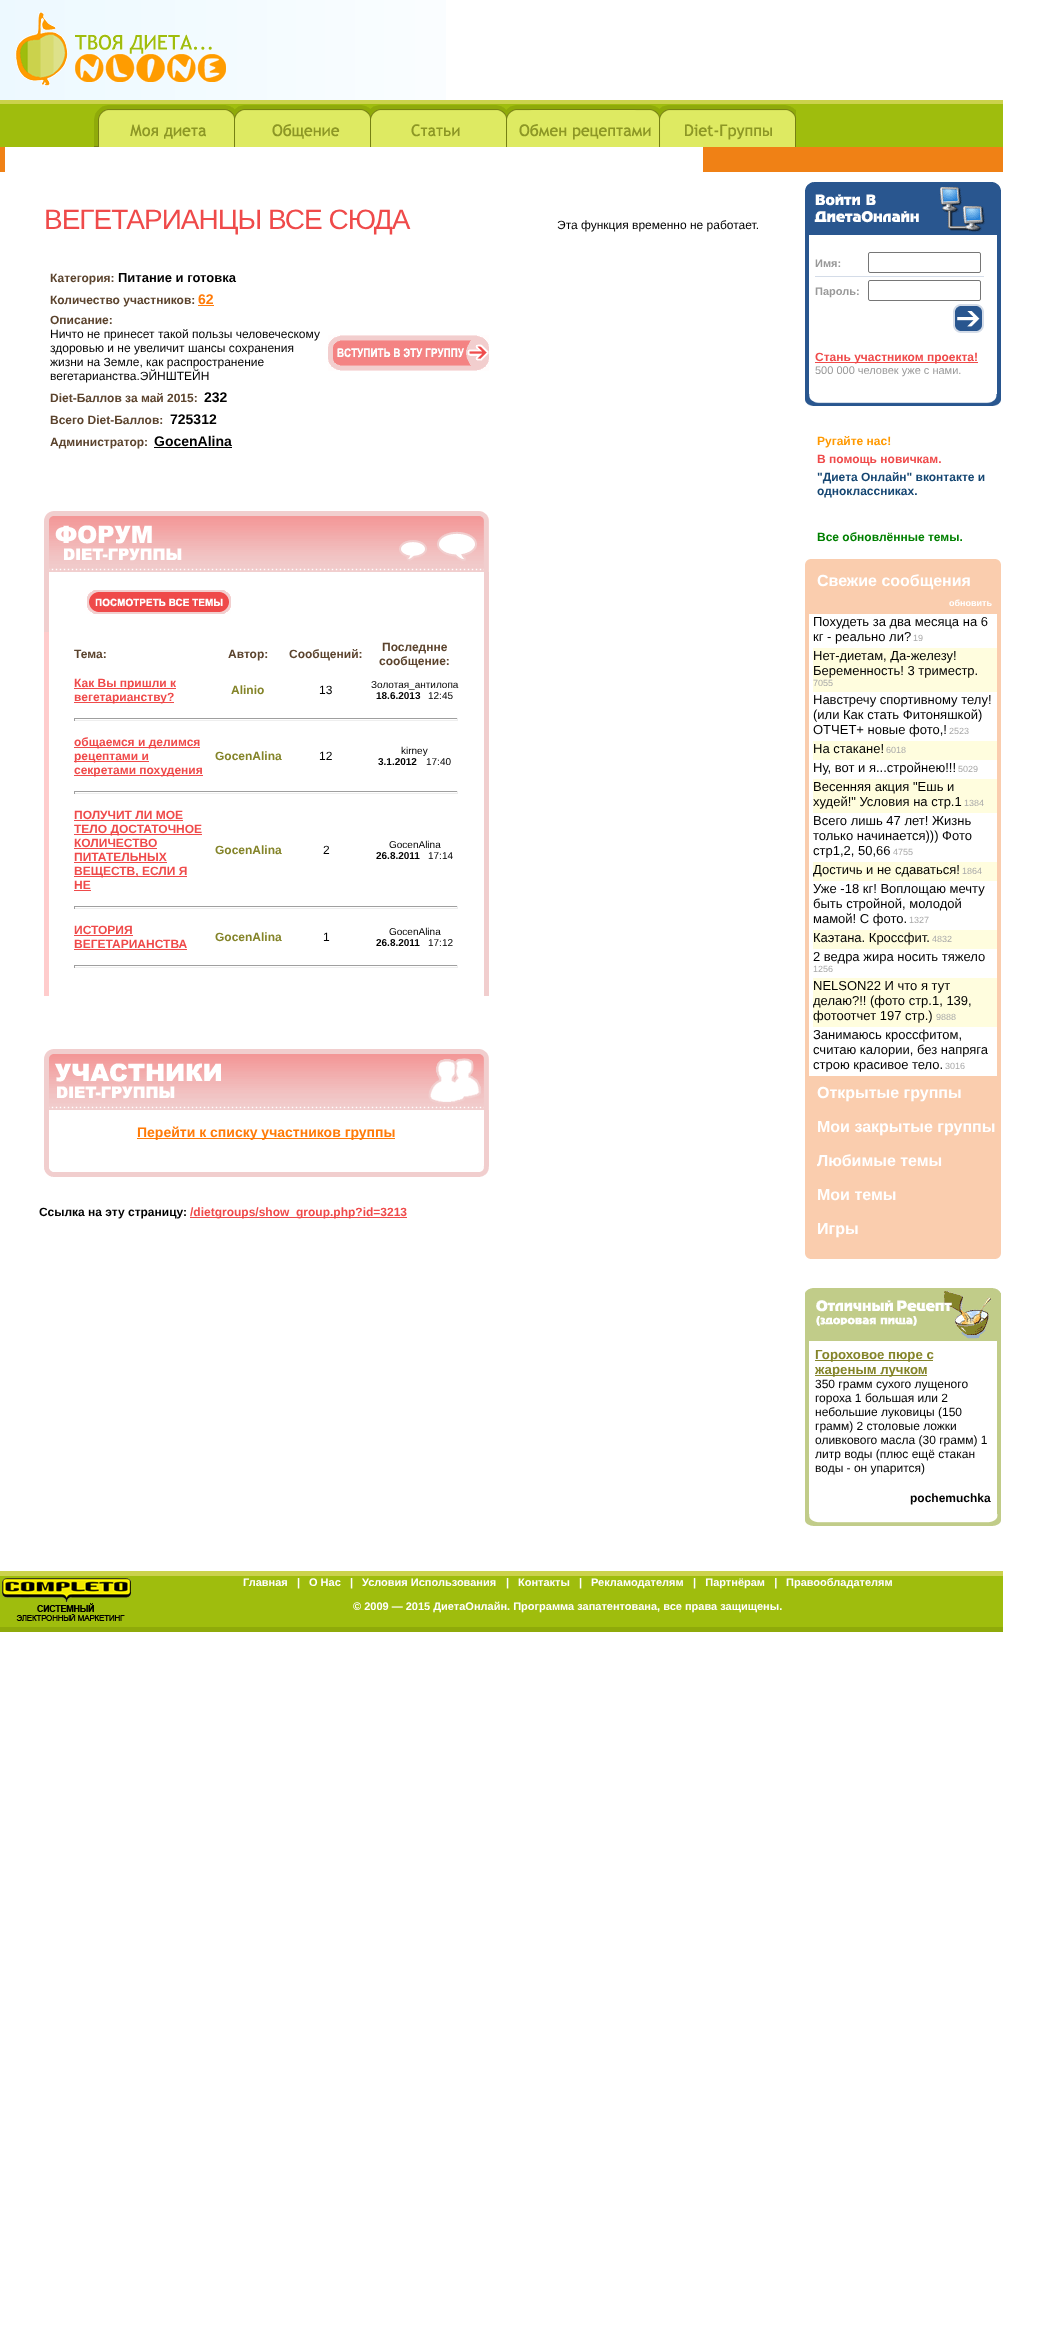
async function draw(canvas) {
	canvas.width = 1055;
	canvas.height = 2345;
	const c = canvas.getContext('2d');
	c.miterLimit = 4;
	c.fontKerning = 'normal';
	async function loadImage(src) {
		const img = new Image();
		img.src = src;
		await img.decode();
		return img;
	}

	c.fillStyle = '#fff';
	c.fillRect(0, 0, 1055, 2345);
	c.drawImage(await loadImage('img1.png'), 0, 0, 446, 100);
	c.drawImage(await loadImage('img2.png'), 15, 12, 211, 76);
	c.drawImage(await loadImage('img3.png'), 0, 100, 1003, 47);
	c.drawImage(await loadImage('img4.png'), 94, 105, 141, 42);
	c.drawImage(await loadImage('img5.png'), 235, 105, 136, 42);
	c.drawImage(await loadImage('img6.png'), 371, 105, 136, 42);
	c.drawImage(await loadImage('img7.png'), 507, 105, 153, 42);
	c.drawImage(await loadImage('img8.png'), 660, 105, 136, 42);
	c.fillStyle = '#f08115';
	c.fillRect(0, 147, 1003, 25);
	c.fillStyle = '#fff';
	c.fillRect(5, 147, 698, 25);
	c.letterSpacing = '-1px';
	c.font = '28px Liberation Sans';
	c.fillStyle = '#ef4a4a';
	c.fillText('ВЕГЕТАРИАНЦЫ ВСЕ СЮДА', 44, 229);
	c.letterSpacing = '0px';
	c.font = 'bold 12px Liberation Sans';
	c.fillStyle = '#5b432d';
	c.fillText('Категория:', 50, 282);
	c.font = 'bold 13px Liberation Sans';
	c.fillStyle = '#000';
	c.fillText('Питание и готовка', 118, 282);
	c.font = 'bold 12px Liberation Sans';
	c.fillStyle = '#5b432d';
	c.fillText('Количество участников:', 50, 304);
	c.font = 'bold 14px Liberation Sans';
	c.fillStyle = '#ff7b08';
	c.fillText('62', 198, 304);
	c.fillRect(198, 305, 16, 1);
	c.font = 'bold 12px Liberation Sans';
	c.fillStyle = '#5b432d';
	c.fillText('Описание:', 50, 324);
	c.font = '12px Liberation Sans';
	c.fillStyle = '#000';
	for (const [text, x, y] of [
		['Ничто не принесет такой пользы человеческому', 50, 338],
		['здоровью и не увеличит шансы сохранения', 50, 352],
		['жизни на Земле, как распространение', 50, 366],
		['вегетарианства.ЭЙНШТЕЙН', 50, 380],
	]) {
		c.fillText(text, x, y);
	}
	c.font = 'bold 12px Liberation Sans';
	c.fillStyle = '#5b432d';
	c.fillText('Diet-Баллов за май 2015:', 50, 402);
	c.font = 'bold 14px Liberation Sans';
	c.fillStyle = '#000';
	c.fillText('232', 204, 402);
	c.font = 'bold 12px Liberation Sans';
	c.fillStyle = '#5b432d';
	c.fillText('Всего Diet-Баллов:', 50, 424);
	c.font = 'bold 14px Liberation Sans';
	c.fillStyle = '#000';
	c.fillText('725312', 170, 424);
	c.font = 'bold 12px Liberation Sans';
	c.fillStyle = '#5b432d';
	c.fillText('Администратор:', 50, 446);
	c.font = 'bold 14px Liberation Sans';
	c.fillStyle = '#000';
	c.fillText('GocenAlina', 154, 446);
	c.fillRect(154, 447, 78, 1);
	c.drawImage(await loadImage('img9.png'), 328, 335, 161, 36);
	c.drawImage(await loadImage('img10.png'), 44, 511, 445, 61);
	c.fillStyle = '#f1cece';
	c.fillRect(484, 572, 5, 424);
	c.fillRect(44, 572, 5, 60);
	c.drawImage(await loadImage('img11.png'), 87, 590, 144, 24);
	c.fillStyle = '#fcc';
	c.fillRect(44, 632, 5, 364);
	c.font = 'bold 12px Liberation Sans';
	c.fillStyle = '#5b432d';
	for (const [text, x, y] of [
		['Тема:', 74, 658],
		['Автор:', 228, 658],
		['Сообщений:', 289, 658],
		['Последнне', 382, 651],
		['сообщение:', 379, 665],
	]) {
		c.fillText(text, x, y);
	}
	c.fillStyle = '#ef4a4a';
	c.fillRect(74, 688, 102, 1);
	c.fillText('Как Вы пришли к', 74, 687);
	c.fillRect(74, 702, 100, 1);
	c.fillText('вегетарианству?', 74, 701);
	c.fillStyle = '#848429';
	c.fillText('Alinio', 231, 694);
	c.font = '12px Liberation Sans';
	c.fillStyle = '#000';
	c.fillText('13', 319, 694);
	c.font = '10px Liberation Sans';
	c.fillText('Золотая_антилопа', 371, 688);
	c.font = 'bold 10px Liberation Sans';
	c.fillText('18.6.2013', 376, 699);
	c.font = '10px Liberation Sans';
	c.fillText('12:45', 428, 699);
	for (const [x, y, w, h, color] of [
		[74, 718, 384, 1, '#9f9f9f'],
		[457, 718, 1, 3, '#eee'],
		[74, 720, 384, 1, '#eee'],
		[74, 718, 1, 3, '#9f9f9f'],
		[74, 747, 126, 1, '#ef4a4a'],
	]) {
		c.fillStyle = color;
		c.fillRect(x, y, w, h);
	}
	c.font = 'bold 12px Liberation Sans';
	c.fillText('общаемся и делимся', 74, 746);
	c.fillRect(74, 761, 75, 1);
	c.fillText('рецептами и', 74, 760);
	c.fillRect(74, 775, 129, 1);
	c.fillText('секретами похудения', 74, 774);
	c.fillStyle = '#848429';
	c.fillText('GocenAlina', 215, 760);
	c.font = '12px Liberation Sans';
	c.fillStyle = '#000';
	c.fillText('12', 319, 760);
	c.font = '10px Liberation Sans';
	c.fillText('kirney', 401, 754);
	c.font = 'bold 10px Liberation Sans';
	c.fillText('3.1.2012', 378, 765);
	c.font = '10px Liberation Sans';
	c.fillText('17:40', 426, 765);
	for (const [x, y, w, h, color] of [
		[74, 791, 384, 1, '#9f9f9f'],
		[457, 791, 1, 3, '#eee'],
		[74, 793, 384, 1, '#eee'],
		[74, 791, 1, 3, '#9f9f9f'],
	]) {
		c.fillStyle = color;
		c.fillRect(x, y, w, h);
	}
	c.font = 'bold 12px Liberation Sans';
	c.fillStyle = '#ef4a4a';
	c.fillText('ПОЛУЧИТ ЛИ МОЕ', 74, 819);
	c.fillRect(74, 820, 109, 1);
	c.fillRect(74, 834, 128, 1);
	c.fillText('ТЕЛО ДОСТАТОЧНОЕ', 74, 833);
	c.fillText('КОЛИЧЕСТВО', 74, 847);
	c.fillRect(74, 848, 83, 1);
	c.fillText('ПИТАТЕЛЬНЫХ', 74, 861);
	c.fillRect(74, 862, 93, 1);
	c.fillRect(74, 876, 113, 1);
	c.fillText('ВЕЩЕСТВ, ЕСЛИ Я', 74, 875);
	c.fillText('НЕ', 74, 889);
	c.fillRect(74, 890, 17, 1);
	c.fillStyle = '#848429';
	c.fillText('GocenAlina', 215, 854);
	c.font = '12px Liberation Sans';
	c.fillStyle = '#000';
	c.fillText('2', 323, 854);
	c.font = '10px Liberation Sans';
	c.fillText('GocenAlina', 389, 848);
	c.font = 'bold 10px Liberation Sans';
	c.fillText('26.8.2011', 376, 859);
	c.font = '10px Liberation Sans';
	c.fillText('17:14', 428, 859);
	for (const [x, y, w, h, color] of [
		[74, 906, 384, 1, '#9f9f9f'],
		[457, 906, 1, 3, '#eee'],
		[74, 908, 384, 1, '#eee'],
		[74, 906, 1, 3, '#9f9f9f'],
	]) {
		c.fillStyle = color;
		c.fillRect(x, y, w, h);
	}
	c.font = 'bold 12px Liberation Sans';
	c.fillStyle = '#ef4a4a';
	c.fillText('ИСТОРИЯ', 74, 934);
	c.fillRect(74, 935, 59, 1);
	c.fillText('ВЕГЕТАРИАНСТВА', 74, 948);
	c.fillRect(74, 949, 113, 1);
	c.fillStyle = '#848429';
	c.fillText('GocenAlina', 215, 941);
	c.font = '12px Liberation Sans';
	c.fillStyle = '#000';
	c.fillText('1', 323, 941);
	c.font = '10px Liberation Sans';
	c.fillText('GocenAlina', 389, 935);
	c.font = 'bold 10px Liberation Sans';
	c.fillText('26.8.2011', 376, 946);
	c.font = '10px Liberation Sans';
	c.fillText('17:12', 428, 946);
	for (const [x, y, w, h, color] of [
		[74, 965, 384, 1, '#9f9f9f'],
		[457, 965, 1, 3, '#eee'],
		[74, 967, 384, 1, '#eee'],
		[74, 965, 1, 3, '#9f9f9f'],
	]) {
		c.fillStyle = color;
		c.fillRect(x, y, w, h);
	}
	c.drawImage(await loadImage('img12.png'), 44, 1049, 445, 61);
	for (const [x, y, w, h, color] of [
		[484, 1110, 5, 56, '#f1cece'],
		[44, 1110, 5, 56, '#f1cece'],
		[137, 1138, 258, 1, '#ff7b08'],
	]) {
		c.fillStyle = color;
		c.fillRect(x, y, w, h);
	}
	c.font = 'bold 14px Liberation Sans';
	c.fillText('Перейти к списку участников группы', 137, 1137);
	c.drawImage(await loadImage('img13.png'), 44, 1166, 445, 11);
	c.font = '12px Liberation Sans';
	c.fillStyle = '#000';
	c.fillText('Эта функция временно не работает.', 557, 229);
	c.font = 'bold 12px Liberation Sans';
	c.fillText('Ссылка на эту страницу:', 39, 1216);
	c.fillStyle = '#ef4a4a';
	c.fillRect(190, 1217, 217, 1);
	c.fillText('/dietgroups/show_group.php?id=3213', 190, 1216);
	c.drawImage(await loadImage('img14.png'), 805, 182, 196, 53);
	c.fillStyle = '#29568f';
	c.fillRect(997, 235, 4, 159);
	c.fillRect(805, 235, 4, 159);
	c.font = 'bold 11px Liberation Sans';
	c.fillStyle = '#999';
	c.fillText('Имя:', 815, 267);
	c.beginPath();
	c.roundRect(868.5, 252.5, 112, 20, 1.5);
	c.strokeStyle = '#767676';
	c.stroke();
	c.fillStyle = '#d4dce8';
	c.fillRect(815, 276, 169, 1);
	c.fillStyle = '#999';
	c.fillText('Пароль:', 815, 295);
	c.beginPath();
	c.roundRect(868.5, 280.5, 112, 20, 1.5);
	c.stroke();
	c.drawImage(await loadImage('img15.png'), 953, 304, 31, 29);
	c.fillStyle = '#ef4a4a';
	c.fillRect(815, 362, 163, 1);
	c.font = 'bold 12px Liberation Sans';
	c.fillText('Стань участником проекта!', 815, 361);
	c.font = '11px Liberation Sans';
	c.fillStyle = '#999';
	c.fillText('500 000 человек уже с нами.', 815, 374);
	c.drawImage(await loadImage('img16.png'), 805, 394, 196, 12);
	c.font = 'bold 12px Liberation Sans';
	c.fillStyle = '#f90';
	c.fillText('Ругайте нас!', 817, 445);
	c.fillStyle = '#ef4a4a';
	c.fillText('В помощь новичкам.', 817, 463);
	c.fillStyle = '#154672';
	c.fillText('"Диета Онлайн" вконтакте и', 817, 481);
	c.fillText('одноклассниках.', 817, 495);
	c.fillStyle = '#008000';
	c.fillText('Все обновлённые темы.', 817, 541);
	c.drawImage(await loadImage('img17.png'), 805, 559, 196, 9);
	c.fillStyle = '#facdae';
	c.fillRect(805, 568, 196, 26);
	c.font = 'bold 16px Liberation Sans';
	c.fillStyle = '#fff';
	c.fillText('Свежие сообщения', 817, 586);
	c.strokeStyle = '#facdae';
	c.lineWidth = 4;
	c.strokeRect(807, 596, 192, 482);
	c.fillStyle = '#facdae';
	c.fillRect(809, 598, 188, 16);
	c.font = 'bold 9px Liberation Sans';
	c.fillStyle = '#fff';
	c.fillText('обновить', 949, 606);
	c.font = '13px Liberation Sans';
	c.fillStyle = '#000';
	c.fillText('Похудеть за два месяца на 6', 813, 626);
	c.fillText('кг - реально ли?', 813, 641);
	c.font = '9px Liberation Sans';
	c.fillStyle = '#a9a9a9';
	c.fillText('19', 913, 641);
	c.fillStyle = '#fffdde';
	c.fillRect(813, 648, 184, 44);
	c.font = '13px Liberation Sans';
	c.fillStyle = '#000';
	c.fillText('Нет-диетам, Да-железу!', 813, 660);
	c.fillText('Беременность! 3 триместр.', 813, 675);
	c.font = '9px Liberation Sans';
	c.fillStyle = '#a9a9a9';
	c.fillText('7055', 813, 686);
	c.font = '13px Liberation Sans';
	c.fillStyle = '#000';
	for (const [text, x, y] of [
		['Навстречу спортивному телу!', 813, 704],
		['(или Как стать Фитоняшкой)', 813, 719],
		['ОТЧЕТ+ новые фото,!', 813, 734],
	]) {
		c.fillText(text, x, y);
	}
	c.font = '9px Liberation Sans';
	c.fillStyle = '#a9a9a9';
	c.fillText('2523', 949, 734);
	c.fillStyle = '#fffdde';
	c.fillRect(813, 741, 184, 19);
	c.font = '13px Liberation Sans';
	c.fillStyle = '#000';
	c.fillText('На стакане!', 813, 753);
	c.font = '9px Liberation Sans';
	c.fillStyle = '#a9a9a9';
	c.fillText('6018', 886, 753);
	c.font = '13px Liberation Sans';
	c.fillStyle = '#000';
	c.fillText('Ну, вот и я...стройнею!!!', 813, 772);
	c.font = '9px Liberation Sans';
	c.fillStyle = '#a9a9a9';
	c.fillText('5029', 958, 772);
	c.fillStyle = '#fffdde';
	c.fillRect(813, 779, 184, 34);
	c.font = '13px Liberation Sans';
	c.fillStyle = '#000';
	c.fillText('Весенняя акция "Ешь и', 813, 791);
	c.fillText('худей!" Условия на стр.1', 813, 806);
	c.font = '9px Liberation Sans';
	c.fillStyle = '#a9a9a9';
	c.fillText('1384', 964, 806);
	c.font = '13px Liberation Sans';
	c.fillStyle = '#000';
	for (const [text, x, y] of [
		['Всего лишь 47 лет! Жизнь', 813, 825],
		['только начинается))) Фото', 813, 840],
		['стр1,2, 50,66', 813, 855],
	]) {
		c.fillText(text, x, y);
	}
	c.font = '9px Liberation Sans';
	c.fillStyle = '#a9a9a9';
	c.fillText('4755', 893, 855);
	c.fillStyle = '#fffdde';
	c.fillRect(813, 862, 184, 19);
	c.font = '13px Liberation Sans';
	c.fillStyle = '#000';
	c.fillText('Достичь и не сдаваться!', 813, 874);
	c.font = '9px Liberation Sans';
	c.fillStyle = '#a9a9a9';
	c.fillText('1864', 962, 874);
	c.font = '13px Liberation Sans';
	c.fillStyle = '#000';
	for (const [text, x, y] of [
		['Уже -18 кг! Воплощаю мечту', 813, 893],
		['быть стройной, молодой', 813, 908],
		['мамой! С фото.', 813, 923],
	]) {
		c.fillText(text, x, y);
	}
	c.font = '9px Liberation Sans';
	c.fillStyle = '#a9a9a9';
	c.fillText('1327', 909, 923);
	c.fillStyle = '#fffdde';
	c.fillRect(813, 930, 184, 19);
	c.font = '13px Liberation Sans';
	c.fillStyle = '#000';
	c.fillText('Каэтана. Кроссфит.', 813, 942);
	c.font = '9px Liberation Sans';
	c.fillStyle = '#a9a9a9';
	c.fillText('4832', 932, 942);
	c.font = '13px Liberation Sans';
	c.fillStyle = '#000';
	c.fillText('2 ведра жира носить тяжело', 813, 961);
	c.font = '9px Liberation Sans';
	c.fillStyle = '#a9a9a9';
	c.fillText('1256', 813, 972);
	c.fillStyle = '#fffdde';
	c.fillRect(813, 978, 184, 49);
	c.font = '13px Liberation Sans';
	c.fillStyle = '#000';
	for (const [text, x, y] of [
		['NELSON22 И что я тут', 813, 990],
		['делаю?!! (фото стр.1, 139,', 813, 1005],
		['фотоотчет 197 стр.)', 813, 1020],
	]) {
		c.fillText(text, x, y);
	}
	c.font = '9px Liberation Sans';
	c.fillStyle = '#a9a9a9';
	c.fillText('9888', 936, 1020);
	c.font = '13px Liberation Sans';
	c.fillStyle = '#000';
	for (const [text, x, y] of [
		['Занимаюсь кроссфитом,', 813, 1039],
		['считаю калории, без напряга', 813, 1054],
		['строю красивое тело.', 813, 1069],
	]) {
		c.fillText(text, x, y);
	}
	c.font = '9px Liberation Sans';
	c.fillStyle = '#a9a9a9';
	c.fillText('3016', 945, 1069);
	c.fillStyle = '#facdae';
	c.fillRect(805, 1080, 196, 170);
	c.font = 'bold 16px Liberation Sans';
	c.fillStyle = '#fff';
	for (const [text, x, y] of [
		['Открытые группы', 817, 1098],
		['Мои закрытые группы', 817, 1132],
		['Любимые темы', 817, 1166],
		['Мои темы', 817, 1200],
		['Игры', 817, 1234],
	]) {
		c.fillText(text, x, y);
	}
	c.drawImage(await loadImage('img18.png'), 805, 1250, 196, 9);
	c.drawImage(await loadImage('img19.png'), 805, 1288, 196, 53);
	for (const [x, y, w, h, color] of [
		[997, 1341, 4, 173, '#c1cc89'],
		[805, 1341, 4, 173, '#c1cc89'],
		[815, 1360, 118, 1, '#848429'],
	]) {
		c.fillStyle = color;
		c.fillRect(x, y, w, h);
	}
	c.font = 'bold 13.25px Liberation Sans';
	c.fillText('Гороховое пюре с', 815, 1359);
	c.fillRect(815, 1375, 112, 1);
	c.fillText('жареным лучком', 815, 1374);
	c.font = '12px Liberation Sans';
	c.fillStyle = '#000';
	for (const [text, x, y] of [
		['350 грамм сухого лущеного', 815, 1388],
		['гороха 1 большая или 2', 815, 1402],
		['небольшие луковицы (150', 815, 1416],
		['грамм) 2 столовые ложки', 815, 1430],
		['оливкового масла (30 грамм) 1', 815, 1444],
		['литр воды (плюс ещё стакан', 815, 1458],
		['воды - он упарится)', 815, 1472],
	]) {
		c.fillText(text, x, y);
	}
	c.font = 'bold 12px Liberation Sans';
	c.fillText('pochemuchka', 910, 1502);
	c.drawImage(await loadImage('img20.png'), 805, 1514, 196, 12);
	c.fillStyle = '#cbd24c';
	c.fillRect(0, 1571, 1003, 5);
	c.fillStyle = '#9fbd0d';
	c.fillRect(0, 1576, 1003, 51);
	c.drawImage(await loadImage('img21.png'), 2, 1578, 129, 43);
	c.font = 'bold 11px Liberation Sans';
	c.fillStyle = '#fff';
	for (const [text, x, y] of [
		['Главная', 243, 1586],
		['|', 297, 1586],
		['О Нас', 309, 1586],
		['|', 350, 1586],
		['Условия Использования', 362, 1586],
		['|', 506, 1586],
		['Контакты', 518, 1586],
		['|', 579, 1586],
		['Рекламодателям', 591, 1586],
		['|   Партнёрам   |', 693, 1586],
		['Правообладателям', 786, 1586],
		['© 2009 — 2015 ДиетаОнлайн. Программа запатентована, все права защищены.', 353, 1610],
	]) {
		c.fillText(text, x, y);
	}
	c.fillStyle = '#8faa0a';
	c.fillRect(0, 1627, 1003, 5);
}

draw(document.querySelector('canvas'));
